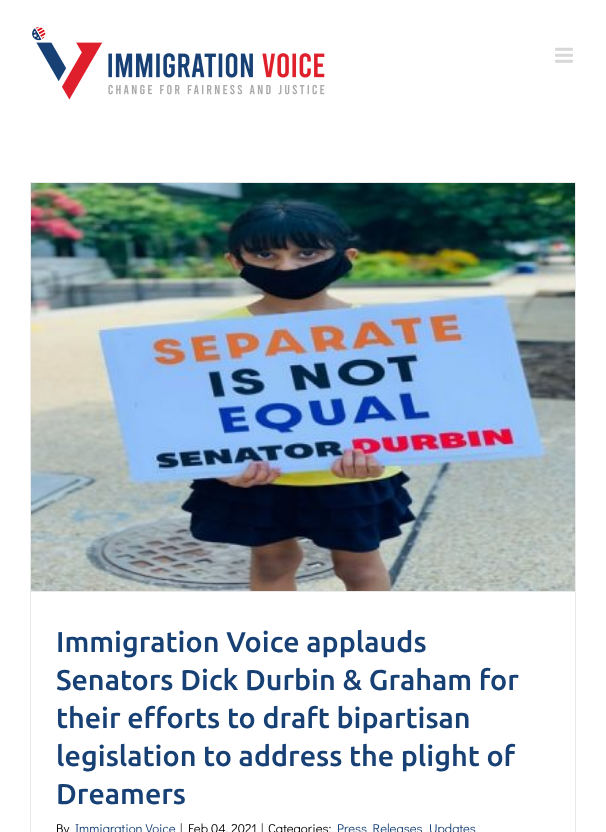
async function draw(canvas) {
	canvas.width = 606;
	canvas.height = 832;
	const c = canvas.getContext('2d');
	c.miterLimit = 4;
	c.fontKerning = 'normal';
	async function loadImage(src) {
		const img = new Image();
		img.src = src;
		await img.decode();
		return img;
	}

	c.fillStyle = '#fff';
	c.fillRect(0, 0, 606, 832);
	c.drawImage(await loadImage('img1.png'), 32, 27, 293, 73);
	c.drawImage(await loadImage('img2.png'), 555, 47, 18, 16);
	for (const [x, y, w, h, color] of [
		[30, 182, 546, 1, '#ebeaea'],
		[575, 182, 1, 650, '#ebeaea'],
		[30, 182, 1, 650, '#ebeaea'],
		[31, 591, 544, 1, '#ebeaea'],
	]) {
		c.fillStyle = color;
		c.fillRect(x, y, w, h);
	}
	c.drawImage(await loadImage('img3.png'), 31, 183, 544, 408);
	c.font = '500 28.7px Ubuntu';
	c.fillStyle = '#174075';
	for (const [text, x, y] of [
		['Immigration Voice applauds', 56, 652],
		['Senators Dick Durbin & Graham for', 56, 690],
		['their efforts to draft bipartisan', 56, 728],
		['legislation to address the plight of', 56, 766],
		['Dreamers', 56, 804],
	]) {
		c.fillText(text, x, y);
	}
	c.font = '13px Didact Gothic';
	c.fillStyle = '#000';
	c.fillText('By', 56, 833);
	c.fillStyle = '#174075';
	c.fillText('Immigration Voice', 75, 833);
	c.fillStyle = '#000';
	for (const [text, x, y] of [
		['|', 180, 833],
		['Feb 04, 2021', 188, 833],
		['|', 261, 833],
		['Categories:', 268, 833],
	]) {
		c.fillText(text, x, y);
	}
	c.fillStyle = '#174075';
	c.fillText('Press Releases', 337, 833);
	c.fillText('Updates', 429, 833);
}

draw(document.querySelector('canvas'));
